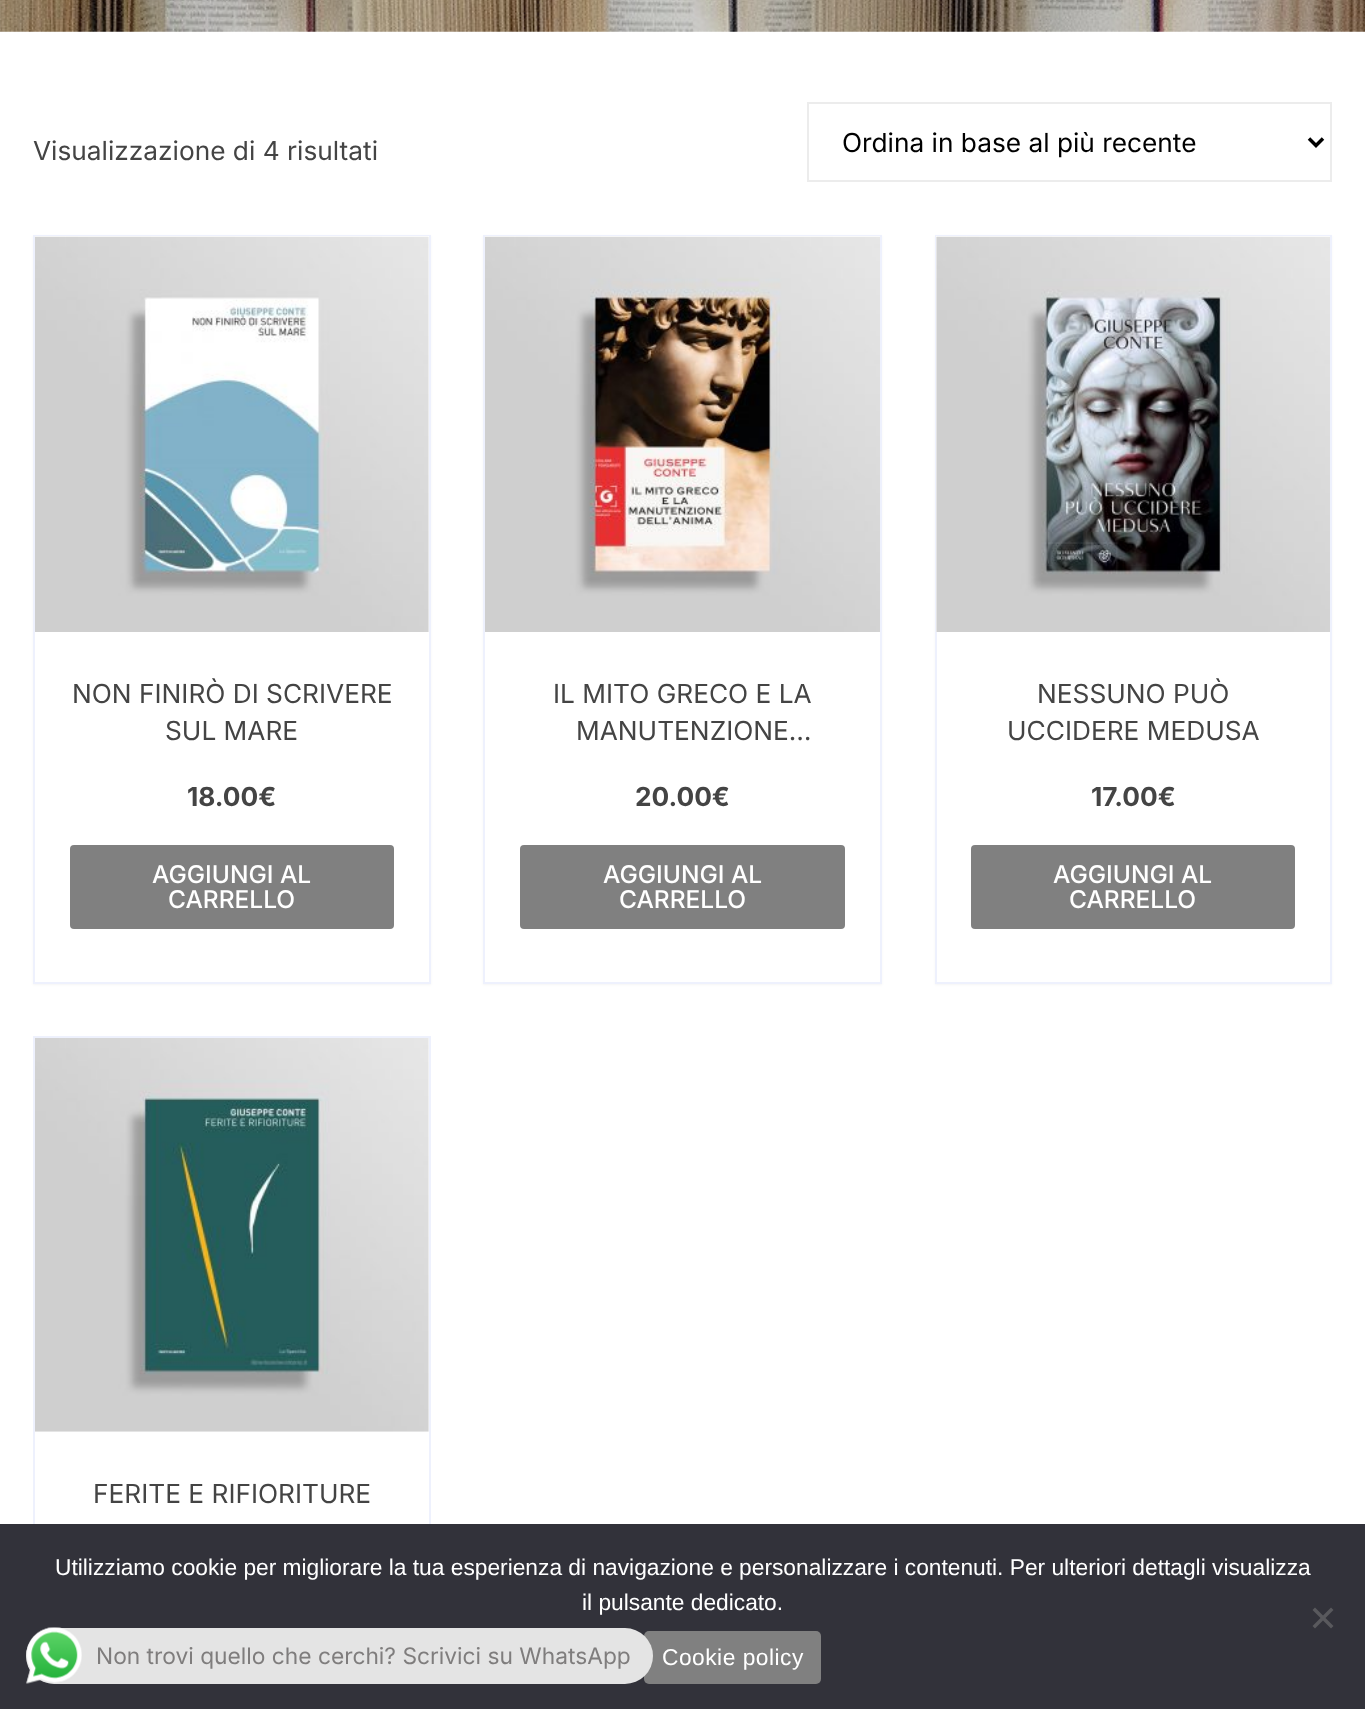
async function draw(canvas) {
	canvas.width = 1365;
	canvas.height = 1709;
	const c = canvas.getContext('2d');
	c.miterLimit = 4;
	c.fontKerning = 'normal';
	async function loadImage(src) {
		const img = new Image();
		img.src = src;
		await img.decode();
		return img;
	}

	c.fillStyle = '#fff';
	c.fillRect(0, 0, 1365, 1709);
	c.drawImage(await loadImage('img1.png'), 0, 0, 1365, 32);
	c.font = '26.25px Inter';
	c.fillStyle = '#444';
	c.fillText('Visualizzazione di 4 risultati', 33, 160);
	c.strokeStyle = '#ececec';
	c.lineWidth = 2;
	c.strokeRect(808, 103, 523, 78);
	c.beginPath();
	c.moveTo(1309, 138.5);
	c.lineTo(1316, 145.5);
	c.lineTo(1323, 138.5);
	c.strokeStyle = '#000';
	c.lineWidth = 3.5;
	c.stroke();
	c.fillStyle = '#000';
	c.fillText('Ordina in base al più recente', 842, 152);
	c.fillStyle = '#0000000a';
	c.filter = 'blur(1px)';
	c.beginPath();
	c.rect(33, 236, 398, 749);
	c.fill();
	c.filter = 'none';
	c.fillStyle = '#fff';
	c.fillRect(35, 632, 394, 350);
	c.strokeStyle = '#eef1fd';
	c.lineWidth = 2;
	c.strokeRect(34, 236, 396, 747);
	c.fillRect(35, 236, 394, 396);
	c.drawImage(await loadImage('img2.png'), 35, 236, 394, 396);
	c.fillStyle = '#444';
	c.fillText('NON FINIRÒ DI SCRIVERE', 72, 703);
	c.fillText('SUL MARE', 165, 740);
	c.font = 'bold 26.25px Inter';
	c.fillText('18.00€', 187, 806);
	c.fillStyle = '#808080';
	c.beginPath();
	c.roundRect(70, 845, 324, 84, 4);
	c.fill();
	c.font = '500 24.5px Inter';
	c.fillStyle = '#fff';
	c.fillText('AGGIUNGI AL', 152, 883);
	c.fillText('CARRELLO', 168, 908);
	c.fillStyle = '#0000000a';
	c.filter = 'blur(1px)';
	c.beginPath();
	c.rect(483, 236, 399, 749);
	c.fill();
	c.filter = 'none';
	c.fillStyle = '#fff';
	c.fillRect(485, 632, 395, 350);
	c.strokeRect(484, 236, 397, 747);
	c.fillRect(485, 236, 395, 1);
	c.drawImage(await loadImage('img3.png'), 485, 236, 395, 396);
	c.font = '26.25px Inter';
	c.fillStyle = '#444';
	c.fillText('IL MITO GRECO E LA', 553, 703);
	c.fillText('MANUTENZIONE…', 576, 740);
	c.font = 'bold 26.25px Inter';
	c.fillText('20.00€', 635, 806);
	c.fillStyle = '#808080';
	c.beginPath();
	c.roundRect(520, 845, 325, 84, 4);
	c.fill();
	c.font = '500 24.5px Inter';
	c.fillStyle = '#fff';
	c.fillText('AGGIUNGI AL', 603, 883);
	c.fillText('CARRELLO', 619, 908);
	c.fillStyle = '#0000000a';
	c.filter = 'blur(1px)';
	c.beginPath();
	c.rect(935, 236, 397, 749);
	c.fill();
	c.filter = 'none';
	c.fillStyle = '#fff';
	c.fillRect(937, 632, 393, 350);
	c.strokeRect(936, 236, 395, 747);
	c.fillRect(936, 236, 394, 396);
	c.drawImage(await loadImage('img4.png'), 936, 236, 394, 396);
	c.font = '26.25px Inter';
	c.fillStyle = '#444';
	c.fillText('NESSUNO PUÒ', 1037, 703);
	c.fillText('UCCIDERE MEDUSA', 1007, 740);
	c.font = 'bold 26.25px Inter';
	c.fillText('17.00€', 1091, 806);
	c.fillStyle = '#808080';
	c.beginPath();
	c.roundRect(971, 845, 324, 84, 4);
	c.fill();
	c.font = '500 24.5px Inter';
	c.fillStyle = '#fff';
	c.fillText('AGGIUNGI AL', 1053, 883);
	c.fillText('CARRELLO', 1069, 908);
	c.strokeRect(34, 1037, 396, 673);
	c.drawImage(await loadImage('img5.png'), 35, 1038, 394, 394);
	c.font = '26.25px Inter';
	c.fillStyle = '#444';
	c.fillText('FERITE E RIFIORITURE', 93, 1503);
	c.fillStyle = '#32323a';
	c.fillRect(0, 1524, 1365, 185);
	c.font = '22.75px Liberation Sans';
	c.fillStyle = '#fff';
	c.fillText('Utilizziamo cookie per migliorare la tua esperienza di navigazione e personalizzare i contenuti. Per ulteriori dettagli visualizza', 55, 1575);
	c.fillText('il pulsante dedicato.', 582, 1610);
	c.fillStyle = '#59595d';
	c.beginPath();
	c.moveTo(1331, 1607.5);
	c.lineTo(1333.5, 1610);
	c.lineTo(1315, 1628.5);
	c.lineTo(1312.5, 1626);
	c.closePath();
	c.fill();
	c.beginPath();
	c.moveTo(1312.5, 1610);
	c.lineTo(1315, 1607.5);
	c.lineTo(1333.5, 1626);
	c.lineTo(1331, 1628.5);
	c.closePath();
	c.fill();
	c.fillStyle = '#808080';
	c.beginPath();
	c.roundRect(644, 1631, 177, 53, 5);
	c.fill();
	c.letterSpacing = '0.5px';
	c.fillStyle = '#fff';
	c.fillText('Cookie policy', 662, 1665);
	c.fillStyle = '#e4e4e4';
	c.beginPath();
	c.roundRect(26, 1628, 627, 56, 28);
	c.fill();
	c.drawImage(await loadImage('img6.png'), 26, 1627, 56, 57);
	c.letterSpacing = '0px';
	c.font = '22.75px Inter';
	c.fillStyle = '#7f7d7d';
	c.fillText('Non trovi quello che cerchi? Scrivici su WhatsApp', 96, 1664);
}

draw(document.querySelector('canvas'));
